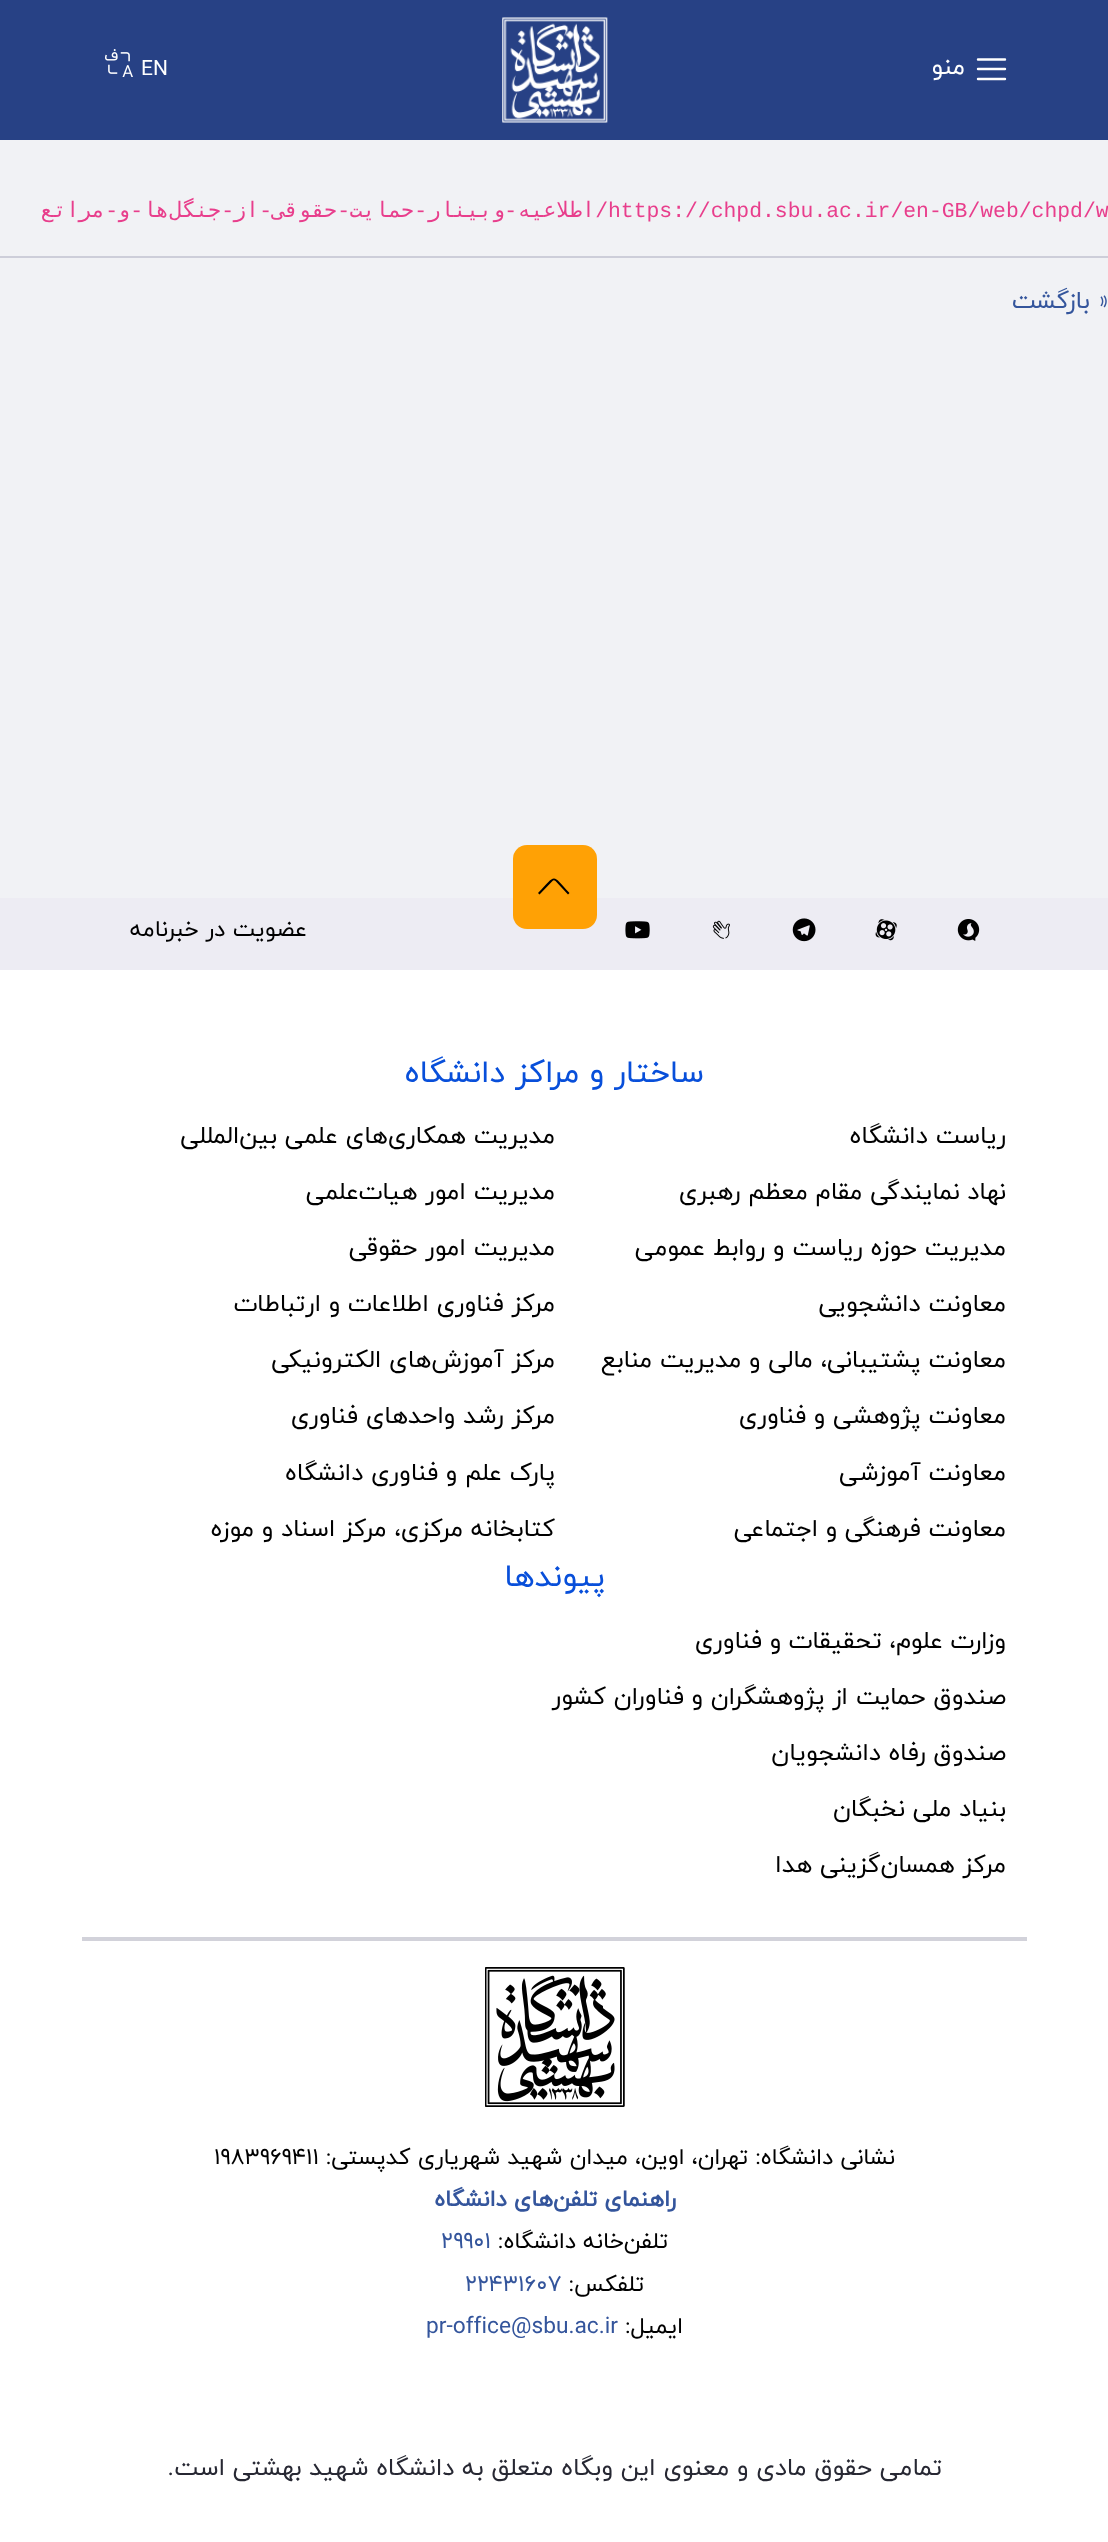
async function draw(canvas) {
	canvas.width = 1108;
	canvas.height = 2542;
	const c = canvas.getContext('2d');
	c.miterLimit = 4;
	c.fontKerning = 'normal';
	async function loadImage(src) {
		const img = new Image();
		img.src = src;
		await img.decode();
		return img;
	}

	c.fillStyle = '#f1f2f5';
	c.fillRect(0, 0, 1108, 2542);
	c.fillStyle = '#274185';
	c.fillRect(0, 0, 1108, 140);
	c.beginPath();
	c.moveTo(978, 59.5);
	c.lineTo(1005, 59.5);
	c.moveTo(978, 69);
	c.lineTo(1005, 69);
	c.moveTo(978, 79);
	c.lineTo(1005, 79);
	c.strokeStyle = '#fff';
	c.lineWidth = 2.4;
	c.lineCap = 'round';
	c.stroke();
	c.direction = 'rtl';
	c.font = '24.5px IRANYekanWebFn';
	c.fillStyle = '#fff';
	c.fillText('منو', 965, 74);
	c.drawImage(await loadImage('img1.png'), 502, 17, 106, 106);
	c.direction = 'ltr';
	c.font = '21px IRANYekanWebFn';
	c.fillText('EN', 141, 75);
	c.drawImage(await loadImage('img2.png'), 105, 49, 28, 28);
	c.font = '21.4px Liberation Mono';
	c.fillStyle = '#e83e8c';
	c.fillText('https://chpd.sbu.ac.ir/en-GB/web/chpd/w', 608, 217);
	c.direction = 'rtl';
	c.fillText('/', 608, 217);
	c.font = '21.4px DejaVu Sans Mono';
	c.fillText('اطلاعیه', 595, 217);
	c.font = '21.4px Liberation Mono';
	c.fillText('-', 517, 217);
	c.font = '21.4px DejaVu Sans Mono';
	c.fillText('وبینار', 505, 217);
	c.font = '21.4px Liberation Mono';
	c.fillText('-', 427, 217);
	c.font = '21.4px DejaVu Sans Mono';
	c.fillText('حمایت', 414, 217);
	c.font = '21.4px Liberation Mono';
	c.fillText('-', 350, 217);
	c.font = '21.4px DejaVu Sans Mono';
	c.fillText('حقوقی', 337, 217);
	c.font = '21.4px Liberation Mono';
	c.fillText('-', 272, 217);
	c.font = '21.4px DejaVu Sans Mono';
	c.fillText('از', 259, 217);
	c.font = '21.4px Liberation Mono';
	c.fillText('-', 234, 217);
	c.font = '21.4px DejaVu Sans Mono';
	c.fillText('جنگل', 221, 217);
	c.fillText('ها', 169, 217);
	c.font = '21.4px Liberation Mono';
	c.fillText('-', 143, 217);
	c.font = '21.4px DejaVu Sans Mono';
	c.fillText('و', 130, 217);
	c.font = '21.4px Liberation Mono';
	c.fillText('-', 118, 217);
	c.font = '21.4px DejaVu Sans Mono';
	c.fillText('مراتع', 105, 217);
	c.fillStyle = '#cdced9';
	c.fillRect(0, 256, 1108, 2);
	c.font = '24.5px IRANYekanWebFn';
	c.fillStyle = '#34559c';
	c.fillText('« بازگشت', 1109, 308);
	c.fillStyle = '#edecf3';
	c.fillRect(0, 898, 1108, 72);
	c.fillStyle = '#ffa105';
	c.beginPath();
	c.roundRect(513, 845, 84, 84, 14);
	c.fill();
	c.fillStyle = '#000';
	c.beginPath();
	c.moveTo(538, 893);
	c.bezierCurveTo(556.5, 873.5, 551.5, 873.5, 569.5, 893);
	c.lineTo(568, 894.5);
	c.lineTo(555.5, 881);
	c.bezierCurveTo(554.5, 880, 553, 880, 552.5, 881);
	c.lineTo(539.5, 894.5);
	c.closePath();
	c.fill();
	c.drawImage(await loadImage('img3.png'), 957, 919, 23, 22);
	c.drawImage(await loadImage('img4.png'), 875, 919, 22, 22);
	c.drawImage(await loadImage('img5.png'), 792, 918, 24, 24);
	c.drawImage(await loadImage('img6.png'), 712, 920, 18, 19);
	c.drawImage(await loadImage('img7.png'), 625, 921, 25, 18);
	c.font = '22.75px IRANYekanWebFn';
	c.fillText('عضویت در خبرنامه', 307, 936);
	c.fillStyle = '#fff';
	c.fillRect(0, 970, 1108, 1572);
	c.font = '31.5px IRANYekanWebFn';
	c.fillStyle = '#084fda';
	c.fillText('ساختار و مراکز دانشگاه', 704, 1082);
	c.font = '24.5px IRANYekanWebFn';
	c.fillStyle = '#000';
	for (const [text, x, y] of [
		['ریاست دانشگاه', 1006, 1143],
		['مدیریت همکاری‌های علمی بین‌المللی', 555, 1143],
		['نهاد نمایندگی مقام معظم رهبری', 1006, 1199],
		['مدیریت امور هیات‌علمی', 555, 1199],
		['مدیریت حوزه ریاست و روابط عمومی', 1006, 1255],
		['مدیریت امور حقوقی', 555, 1255],
		['معاونت دانشجویی', 1006, 1311],
		['مرکز فناوری اطلاعات و ارتباطات', 555, 1311],
		['معاونت پشتیبانی، مالی و مدیریت منابع', 1006, 1367],
		['مرکز آموزش‌های الکترونیکی', 555, 1367],
		['معاونت پژوهشی و فناوری', 1006, 1423],
		['مرکز رشد واحدهای فناوری', 555, 1423],
		['معاونت آموزشی', 1006, 1480],
		['پارک علم و فناوری دانشگاه', 555, 1480],
		['معاونت فرهنگی و اجتماعی', 1006, 1536],
		['کتابخانه مرکزی، مرکز اسناد و موزه', 555, 1536],
	]) {
		c.fillText(text, x, y);
	}
	c.font = '31.5px IRANYekanWebFn';
	c.fillStyle = '#084fda';
	c.fillText('پیوندها', 605, 1586);
	c.font = '24.5px IRANYekanWebFn';
	c.fillStyle = '#000';
	for (const [text, x, y] of [
		['وزارت علوم، تحقیقات و فناوری', 1006, 1648],
		['صندوق حمایت از پژوهشگران و فناوران کشور', 1006, 1704],
		['صندوق رفاه دانشجویان', 1006, 1760],
		['بنیاد ملی نخبگان', 1006, 1816],
		['مرکز همسان‌گزینی هدا', 1006, 1872],
	]) {
		c.fillText(text, x, y);
	}
	c.fillStyle = '#d2d2da';
	c.fillRect(82, 1937, 945, 4);
	c.drawImage(await loadImage('img8.png'), 485, 1967, 140, 140);
	c.font = '22.75px IRANYekanWebFn';
	c.fillStyle = '#000';
	c.fillText('نشانی دانشگاه: تهران، اوین، ميدان شهيد شهرياری کدپستی:', 895, 2164);
	c.direction = 'ltr';
	c.fillText('1983969411', 214, 2164);
	c.direction = 'rtl';
	c.font = 'bold 22.75px IRANYekanWebFn';
	c.fillStyle = '#34559c';
	c.fillText('راهنمای تلفن‌های دانشگاه', 676, 2206);
	c.font = '22.75px IRANYekanWebFn';
	c.fillStyle = '#000';
	c.fillText('تلفن‌خانه دانشگاه:', 668, 2248);
	c.direction = 'ltr';
	c.fillStyle = '#34559c';
	c.fillText('۲۹۹۰۱', 441, 2248);
	c.direction = 'rtl';
	c.fillStyle = '#000';
	c.fillText('تلفکس:', 644, 2291);
	c.direction = 'ltr';
	c.fillStyle = '#34559c';
	c.fillText('22431607', 465, 2291);
	c.direction = 'rtl';
	c.fillStyle = '#000';
	c.fillText('ایمیل:', 683, 2333);
	c.direction = 'ltr';
	c.fillStyle = '#34559c';
	c.fillText('pr-office@sbu.ac.ir', 426, 2333);
	c.direction = 'rtl';
	c.font = '24.5px IRANYekanWebFn';
	c.fillStyle = '#272833';
	c.fillText('تمامی حقوق مادی و معنوی این وبگاه متعلق به دانشگاه شهید بهشتی است.', 942, 2475);
}

draw(document.querySelector('canvas'));
